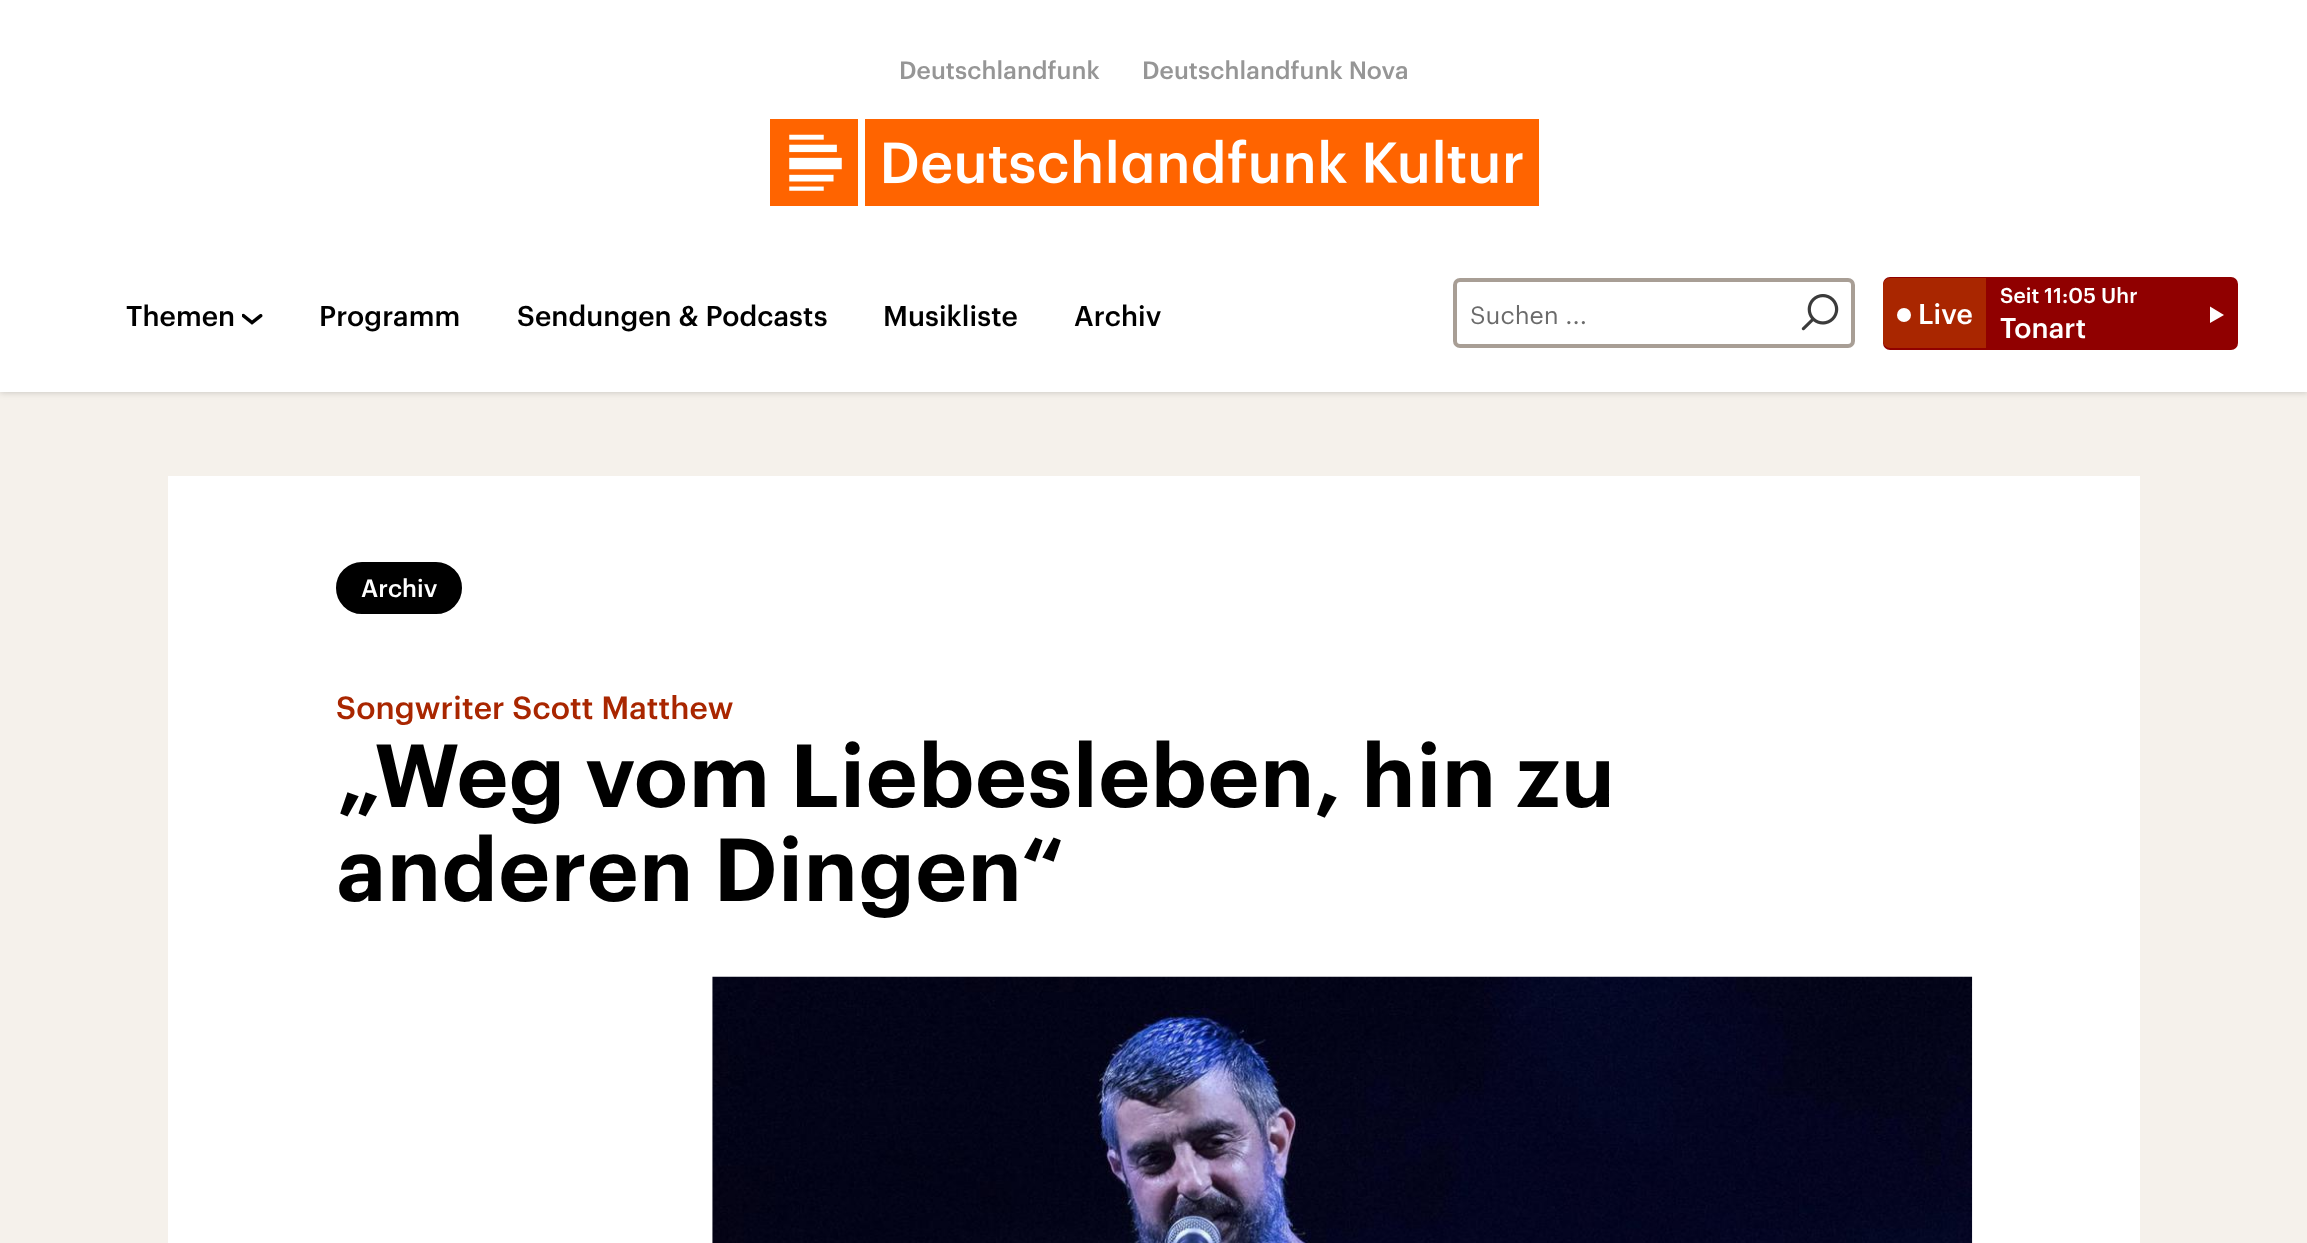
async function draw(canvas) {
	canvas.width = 2307;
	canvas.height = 1243;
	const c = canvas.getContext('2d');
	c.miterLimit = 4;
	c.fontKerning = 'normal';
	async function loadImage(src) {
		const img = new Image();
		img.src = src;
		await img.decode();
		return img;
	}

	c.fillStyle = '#f5f1eb';
	c.fillRect(0, 0, 2307, 1243);
	c.fillStyle = '#00000033';
	c.filter = 'blur(3.5px)';
	c.beginPath();
	c.rect(0, 0, 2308, 392);
	c.fill();
	c.filter = 'none';
	c.fillStyle = '#fff';
	c.fillRect(0, 0, 2307, 392);
	c.font = '500 24.5px Graphik';
	c.fillStyle = '#969696';
	c.fillText('Deutschlandfunk', 899, 79);
	c.fillText('Deutschlandfunk Nova', 1142, 79);
	c.drawImage(await loadImage('img1.png'), 770, 119, 769, 87);
	c.font = '500 28px Graphik';
	c.fillStyle = '#000';
	c.fillText('Themen', 126, 326);
	c.drawImage(await loadImage('img2.png'), 242, 313, 21, 12);
	for (const [text, x, y] of [
		['Programm', 319, 326],
		['Sendungen & Podcasts', 517, 326],
		['Musikliste', 883, 326],
		['Archiv', 1074, 326],
	]) {
		c.fillText(text, x, y);
	}
	c.beginPath();
	c.roundRect(1455, 280, 398, 66, 5);
	c.strokeStyle = '#a89e95';
	c.lineWidth = 4;
	c.stroke();
	c.font = '24.5px Graphik';
	c.fillStyle = '#6b6b6b';
	c.fillText('Suchen ...', 1470, 324);
	c.drawImage(await loadImage('img3.png'), 1801, 294, 38, 37);
	c.fillStyle = '#900000';
	c.beginPath();
	c.roundRect(1883, 277, 355, 73, 7);
	c.fill();
	c.fillStyle = '#a92600';
	c.beginPath();
	c.roundRect(1883, 278, 103, 70, [7, 0, 0, 7]);
	c.fill();
	c.fillStyle = '#fff';
	c.beginPath();
	c.arc(1904, 315, 7, 0, 2 * Math.PI);
	c.fill();
	c.font = '500 28px Graphik';
	c.fillText('Live', 1918, 324);
	c.font = '500 21px Graphik';
	c.fillText('Seit 11:05 Uhr', 2000, 303);
	c.beginPath();
	c.moveTo(2210, 323);
	c.lineTo(2210, 306.5);
	c.lineTo(2224, 315);
	c.closePath();
	c.fill();
	c.font = '500 28px Graphik';
	c.fillText('Tonart', 2000, 338);
	c.fillRect(168, 476, 1972, 767);
	c.fillStyle = '#000';
	c.beginPath();
	c.roundRect(338, 564, 122, 48, 24);
	c.fill();
	c.strokeStyle = '#000';
	c.stroke();
	c.font = '500 24.5px Graphik';
	c.fillStyle = '#fff';
	c.fillText('Archiv', 361, 597);
	c.font = '500 31.5px Graphik';
	c.fillStyle = '#a92600';
	c.fillText('Songwriter Scott Matthew', 336, 719);
	c.font = '600 87.5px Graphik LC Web';
	c.fillStyle = '#000';
	c.fillText('„Weg vom Liebesleben, hin zu', 336, 807);
	c.fillText('anderen Dingen“', 336, 901);
	c.drawImage(await loadImage('img4.png'), 712, 976, 1261, 267);
}

draw(document.querySelector('canvas'));
